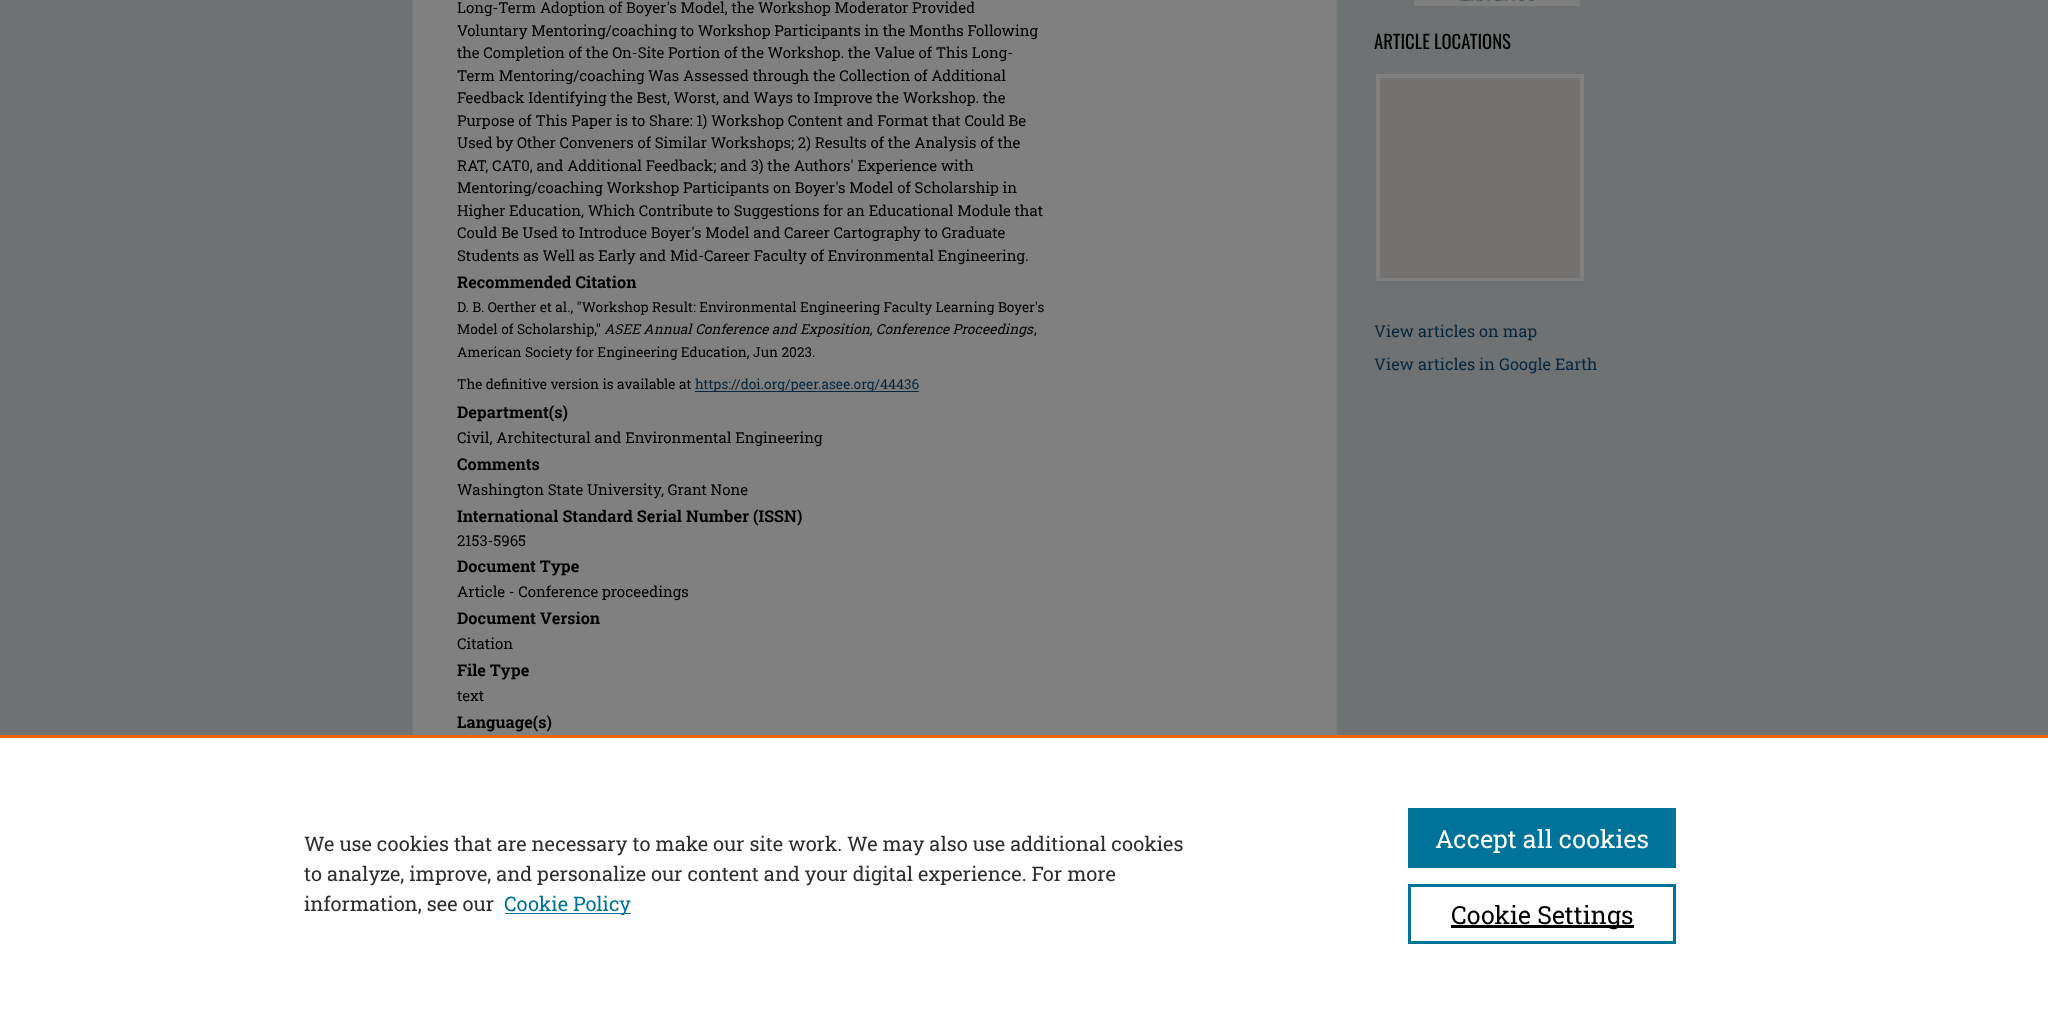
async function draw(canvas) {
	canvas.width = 2048;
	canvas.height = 1009;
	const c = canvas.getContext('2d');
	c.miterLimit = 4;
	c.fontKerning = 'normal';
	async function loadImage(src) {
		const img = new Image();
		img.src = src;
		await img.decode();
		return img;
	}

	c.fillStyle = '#6e7272';
	c.fillRect(0, 0, 2048, 1009);
	c.drawImage(await loadImage('img1.png'), 412, 0, 926, 735);
	c.font = '15px Roboto Slab';
	c.fillStyle = '#000';
	for (const [text, x, y] of [
		['Long-Term Adoption of Boyer\'s Model, the Workshop Moderator Provided', 457, 13],
		['Voluntary Mentoring/coaching to Workshop Participants in the Months Following', 457, 36],
		['the Completion of the On-Site Portion of the Workshop. the Value of This Long-', 457, 58],
		['Term Mentoring/coaching Was Assessed through the Collection of Additional', 457, 81],
		['Feedback Identifying the Best, Worst, and Ways to Improve the Workshop. the', 457, 103],
		['Purpose of This Paper is to Share: 1) Workshop Content and Format that Could Be', 457, 126],
		['Used by Other Conveners of Similar Workshops; 2) Results of the Analysis of the', 457, 148],
		['RAT, CAT0, and Additional Feedback; and 3) the Authors\' Experience with', 457, 171],
		['Mentoring/coaching Workshop Participants on Boyer\'s Model of Scholarship in', 457, 193],
		['Higher Education, Which Contribute to Suggestions for an Educational Module that', 457, 216],
		['Could Be Used to Introduce Boyer\'s Model and Career Cartography to Graduate', 457, 238],
		['Students as Well as Early and Mid-Career Faculty of Environmental Engineering.', 457, 261],
	]) {
		c.fillText(text, x, y);
	}
	c.font = 'bold 16.25px Roboto Slab';
	c.fillText('Recommended Citation', 457, 288);
	c.font = '13.75px Roboto Slab';
	c.fillText('D. B. Oerther et al., "Workshop Result: Environmental Engineering Faculty Learning Boyer\'s', 457, 312);
	c.fillText('Model of Scholarship,"', 457, 334);
	c.font = 'italic 13.75px Roboto Slab';
	c.fillText('ASEE Annual Conference and Exposition, Conference Proceedings', 604, 334);
	c.font = '13.75px Roboto Slab';
	for (const [text, x, y] of [
		[',', 1034, 334],
		['American Society for Engineering Education, Jun 2023.', 457, 357],
		['The definitive version is available at', 457, 389],
	]) {
		c.fillText(text, x, y);
	}
	c.fillStyle = '#08273e';
	c.fillRect(695, 391, 224, 1);
	c.fillText('https://doi.org/peer.asee.org/44436', 695, 389);
	c.font = 'bold 16.25px Roboto Slab';
	c.fillStyle = '#000';
	c.fillText('Department(s)', 457, 418);
	c.font = '15px Roboto Slab';
	c.fillText('Civil, Architectural and Environmental Engineering', 457, 443);
	c.font = 'bold 16.25px Roboto Slab';
	c.fillText('Comments', 457, 470);
	c.font = '15px Roboto Slab';
	c.fillText('Washington State University, Grant None', 457, 495);
	c.font = 'bold 16.25px Roboto Slab';
	c.fillText('International Standard Serial Number (ISSN)', 457, 522);
	c.font = '15px Roboto Slab';
	c.fillText('2153-5965', 457, 546);
	c.font = 'bold 16.25px Roboto Slab';
	c.fillText('Document Type', 457, 572);
	c.font = '15px Roboto Slab';
	c.fillText('Article - Conference proceedings', 457, 597);
	c.font = 'bold 16.25px Roboto Slab';
	c.fillText('Document Version', 457, 624);
	c.font = '15px Roboto Slab';
	c.fillText('Citation', 457, 649);
	c.font = 'bold 16.25px Roboto Slab';
	c.fillText('File Type', 457, 676);
	c.font = '15px Roboto Slab';
	c.fillText('text', 457, 701);
	c.font = 'bold 16.25px Roboto Slab';
	c.fillText('Language(s)', 457, 728);
	c.drawImage(await loadImage('img2.png'), 1413, 0, 167, 6);
	c.font = '18.75px Oswald';
	c.fillText('ARTICLE LOCATIONS', 1374, 49);
	c.strokeStyle = '#808080';
	c.lineWidth = 4;
	c.strokeRect(1378, 76, 204, 203);
	c.fillStyle = '#737270';
	c.fillRect(1380, 78, 200, 200);
	c.font = '16.25px Roboto Slab';
	c.fillStyle = '#08273e';
	c.fillText('View articles on map', 1374, 337);
	c.fillText('View articles in Google Earth', 1374, 370);
	c.fillStyle = '#fff';
	c.fillRect(0, 738, 2048, 271);
	c.fillStyle = '#eb6500';
	c.fillRect(0, 735, 2048, 3);
	c.font = '20px Roboto Slab';
	c.fillStyle = '#2e2e2e';
	for (const [text, x, y] of [
		['We use cookies that are necessary to make our site work. We may also use additional cookies', 304, 851],
		['to analyze, improve, and personalize our content and your digital experience. For more', 304, 881],
		['information, see our', 304, 911],
	]) {
		c.fillText(text, x, y);
	}
	c.fillStyle = '#007398';
	c.fillRect(505, 913, 126, 1);
	c.fillText('Cookie Policy', 504, 911);
	c.fillRect(1408, 808, 268, 60);
	c.font = '25px Roboto Slab';
	c.fillStyle = '#fff';
	c.fillText('Accept all cookies', 1435, 848);
	c.strokeStyle = '#007398';
	c.lineWidth = 3;
	c.strokeRect(1409.5, 885.5, 265, 57);
	c.fillStyle = '#000';
	c.fillRect(1451, 925, 183, 3);
	c.fillText('Cookie Settings', 1451, 924);
}

draw(document.querySelector('canvas'));
